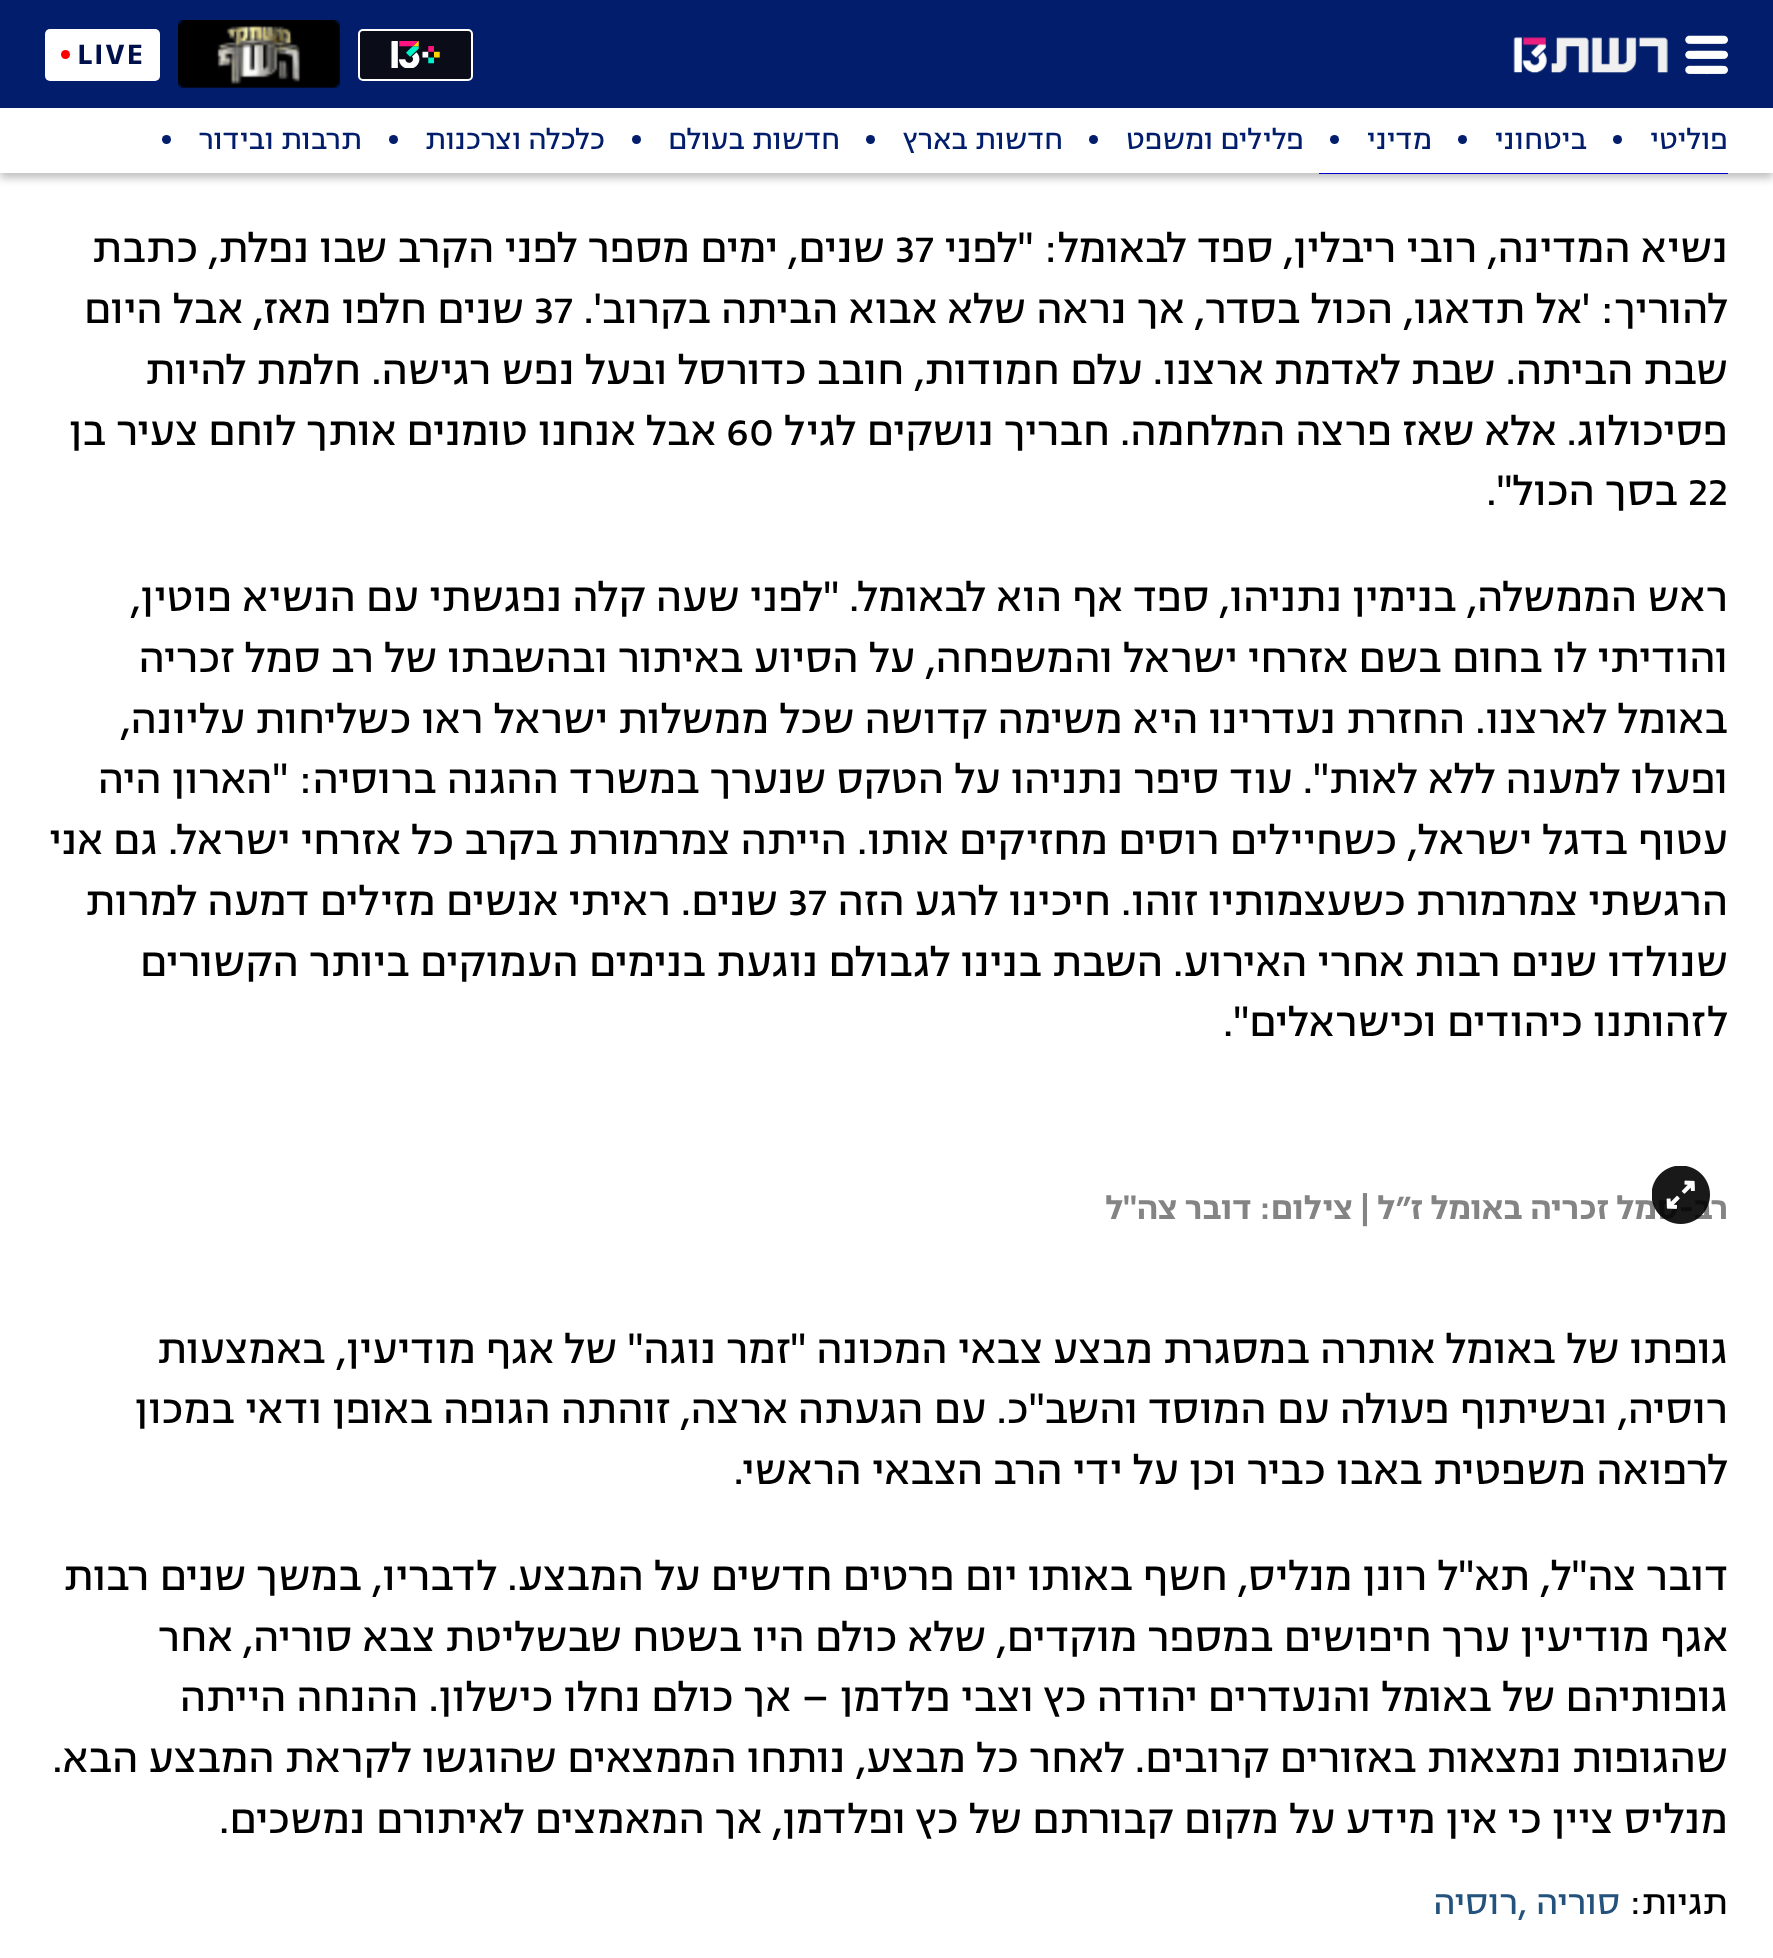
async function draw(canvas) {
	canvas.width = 1773;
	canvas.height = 1958;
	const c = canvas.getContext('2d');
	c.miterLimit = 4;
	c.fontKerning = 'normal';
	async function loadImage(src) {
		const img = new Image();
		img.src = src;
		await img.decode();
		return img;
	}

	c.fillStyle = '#fff';
	c.fillRect(0, 0, 1773, 1958);
	c.fillStyle = '#00f';
	c.fillRect(1319, 173, 409, 1);
	c.fillStyle = '#00000040';
	c.filter = 'blur(4.5px)';
	c.beginPath();
	c.rect(0, 5, 1773, 173);
	c.fill();
	c.filter = 'none';
	c.fillStyle = '#011d6b';
	c.fillRect(0, 0, 1773, 108);
	c.drawImage(await loadImage('img1.png'), 1685, 35, 43, 39);
	c.drawImage(await loadImage('img2.png'), 1513, 37, 155, 37);
	c.fillStyle = '#0a0c18';
	c.beginPath();
	c.roundRect(359, 30, 113, 50, 4);
	c.fill();
	c.strokeStyle = '#fff';
	c.lineWidth = 2;
	c.stroke();
	c.drawImage(await loadImage('img3.png'), 391, 41, 49, 27);
	c.drawImage(await loadImage('img4.png'), 178, 20, 162, 68);
	c.fillStyle = '#fff';
	c.beginPath();
	c.roundRect(45, 29, 115, 52, 5);
	c.fill();
	c.letterSpacing = '1.5px';
	c.font = '600 34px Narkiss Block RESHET';
	c.fillStyle = '#00104a';
	c.fillText('LIVE', 77, 64);
	c.fillStyle = '#f00';
	c.beginPath();
	c.arc(65.5, 54.5, 4.5, 0, 2 * Math.PI);
	c.fill();
	c.fillStyle = '#fff';
	c.fillRect(0, 108, 1773, 65);
	c.letterSpacing = '0px';
	c.direction = 'rtl';
	c.font = '31.5px Narkiss Block RESHET';
	c.fillStyle = '#011d6b';
	c.fillText('פוליטי', 1728, 149);
	c.beginPath();
	c.arc(1617.5, 139.5, 4.5, 0, 2 * Math.PI);
	c.fill();
	c.fillText('ביטחוני', 1587, 149);
	c.beginPath();
	c.arc(1462.5, 139.5, 4.5, 0, 2 * Math.PI);
	c.fill();
	c.fillText('מדיני', 1432, 149);
	c.beginPath();
	c.arc(1334.5, 139.5, 4.5, 0, 2 * Math.PI);
	c.fill();
	c.fillText('פלילים ומשפט', 1304, 149);
	c.beginPath();
	c.arc(1093.5, 139.5, 4.5, 0, 2 * Math.PI);
	c.fill();
	c.fillText('חדשות בארץ', 1063, 149);
	c.beginPath();
	c.arc(870.5, 139.5, 4.5, 0, 2 * Math.PI);
	c.fill();
	c.fillText('חדשות בעולם', 840, 149);
	c.beginPath();
	c.arc(636.5, 139.5, 4.5, 0, 2 * Math.PI);
	c.fill();
	c.fillText('כלכלה וצרכנות', 605, 149);
	c.beginPath();
	c.arc(393.5, 139.5, 4.5, 0, 2 * Math.PI);
	c.fill();
	c.fillText('תרבות ובידור', 362, 149);
	c.beginPath();
	c.arc(166.5, 139.5, 4.5, 0, 2 * Math.PI);
	c.fill();
	c.font = '45px Narkiss Block RESHET';
	c.fillStyle = '#000';
	c.fillText('נשיא המדינה, רובי ריבלין, ספד לבאומל: "לפני', 1728, 262);
	c.direction = 'ltr';
	c.fillText('37', 895, 262);
	c.direction = 'rtl';
	c.fillText('שנים, ימים מספר לפני הקרב שבו נפלת, כתבת', 885, 262);
	c.fillText('להוריך: \'אל תדאגו, הכול בסדר, אך נראה שלא אבוא הביתה בקרוב\'.', 1728, 323);
	c.direction = 'ltr';
	c.fillText('37', 534, 323);
	c.direction = 'rtl';
	for (const [text, x, y] of [
		['שנים חלפו מאז, אבל היום', 524, 323],
		['שבת הביתה. שבת לאדמת ארצנו. עלם חמודות, חובב כדורסל ובעל נפש רגישה. חלמת להיות', 1728, 384],
		['פסיכולוג. אלא שאז פרצה המלחמה. חבריך נושקים לגיל', 1728, 445],
	]) {
		c.fillText(text, x, y);
	}
	c.direction = 'ltr';
	c.fillText('60', 726, 445);
	c.direction = 'rtl';
	c.fillText('אבל אנחנו טומנים אותך לוחם צעיר בן', 716, 445);
	c.direction = 'ltr';
	c.fillText('22', 1688, 505);
	c.direction = 'rtl';
	for (const [text, x, y] of [
		['בסך הכול".', 1678, 505],
		['ראש הממשלה, בנימין נתניהו, ספד אף הוא לבאומל. "לפני שעה קלה נפגשתי עם הנשיא פוטין,', 1728, 611],
		['והודיתי לו בחום בשם אזרחי ישראל והמשפחה, על הסיוע באיתור ובהשבתו של רב סמל זכריה', 1728, 672],
		['באומל לארצנו. החזרת נעדרינו היא משימה קדושה שכל ממשלות ישראל ראו כשליחות עליונה,', 1728, 733],
		['ופעלו למענה ללא לאות". עוד סיפר נתניהו על הטקס שנערך במשרד ההגנה ברוסיה: "הארון היה', 1728, 793],
		['עטוף בדגל ישראל, כשחיילים רוסים מחזיקים אותו. הייתה צמרמורת בקרב כל אזרחי ישראל. גם אני', 1728, 854],
		['הרגשתי צמרמורת כשעצמותיו זוהו. חיכינו לרגע הזה', 1728, 915],
	]) {
		c.fillText(text, x, y);
	}
	c.direction = 'ltr';
	c.fillText('37', 788, 915);
	c.direction = 'rtl';
	for (const [text, x, y] of [
		['שנים. ראיתי אנשים מזילים דמעה למרות', 778, 915],
		['שנולדו שנים רבות אחרי האירוע. השבת בנינו לגבולם נוגעת בנימים העמוקים ביותר הקשורים', 1728, 976],
		['לזהותנו כיהודים וכישראלים".', 1728, 1036],
	]) {
		c.fillText(text, x, y);
	}
	c.font = '600 36px Narkiss Block RESHET';
	c.fillStyle = '#848484';
	c.fillText('רב-סמל זכריה באומל ז״ל | צילום: דובר צה\'\'ל', 1728, 1219);
	c.drawImage(await loadImage('img5.png'), 1652, 1166, 58, 58);
	c.font = '45px Narkiss Block RESHET';
	c.fillStyle = '#000';
	for (const [text, x, y] of [
		['גופתו של באומל אותרה במסגרת מבצע צבאי המכונה "זמר נוגה" של אגף מודיעין, באמצעות', 1728, 1363],
		['רוסיה, ובשיתוף פעולה עם המוסד והשב"כ. עם הגעתה ארצה, זוהתה הגופה באופן ודאי במכון', 1728, 1423],
		['לרפואה משפטית באבו כביר וכן על ידי הרב הצבאי הראשי.', 1728, 1484],
		['דובר צה"ל, תא"ל רונן מנליס, חשף באותו יום פרטים חדשים על המבצע. לדבריו, במשך שנים רבות', 1728, 1590],
		['אגף מודיעין ערך חיפושים במספר מוקדים, שלא כולם היו בשטח שבשליטת צבא סוריה, אחר', 1728, 1651],
		['גופותיהם של באומל והנעדרים יהודה כץ וצבי פלדמן – אך כולם נחלו כישלון. ההנחה הייתה', 1728, 1711],
		['שהגופות נמצאות באזורים קרובים. לאחר כל מבצע, נותחו הממצאים שהוגשו לקראת המבצע הבא.', 1728, 1772],
		['מנליס ציין כי אין מידע על מקום קבורתם של כץ ופלדמן, אך המאמצים לאיתורם נמשכים.', 1728, 1833],
	]) {
		c.fillText(text, x, y);
	}
	c.font = '38px Narkiss Block RESHET';
	c.fillText('תגיות:', 1728, 1914);
	c.fillStyle = '#23527c';
	c.fillText('סוריה', 1620, 1914);
	c.direction = 'ltr';
	c.fillText(',', 1518, 1914);
	c.direction = 'rtl';
	c.fillText('רוסיה', 1518, 1914);
}

draw(document.querySelector('canvas'));
